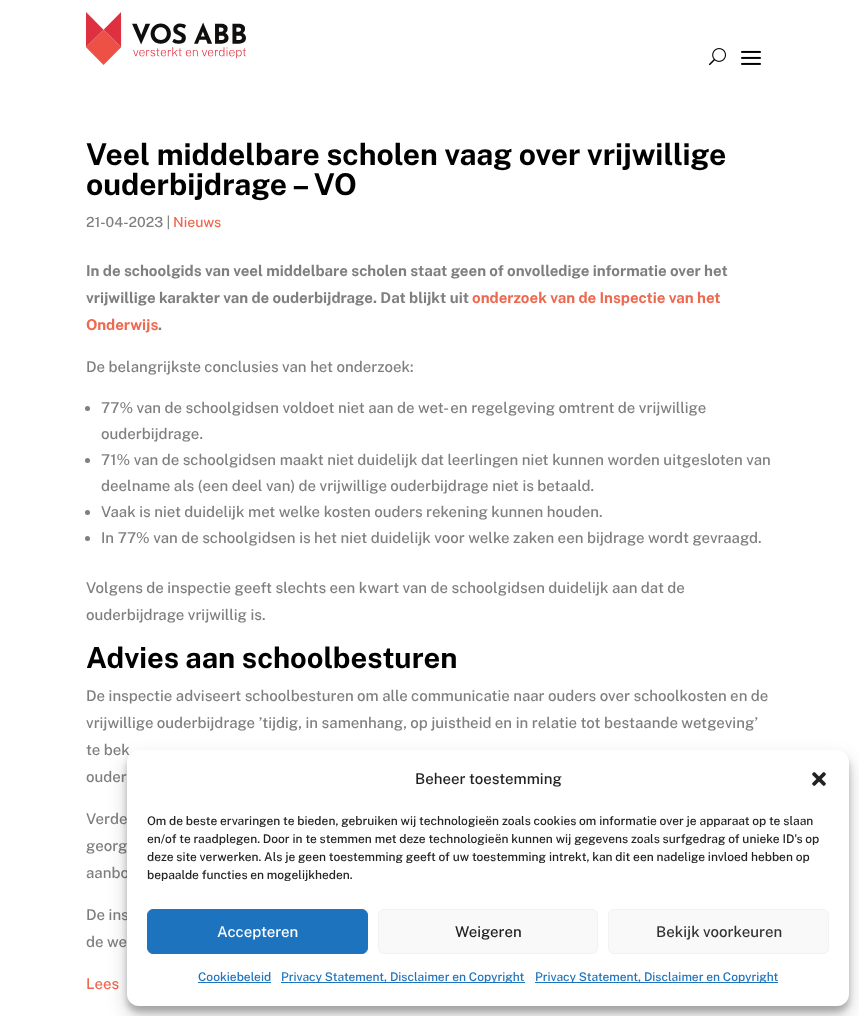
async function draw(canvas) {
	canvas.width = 859;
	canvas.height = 1016;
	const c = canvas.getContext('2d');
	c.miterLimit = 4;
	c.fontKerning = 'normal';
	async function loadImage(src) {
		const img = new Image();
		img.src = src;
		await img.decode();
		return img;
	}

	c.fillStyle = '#fff';
	c.fillRect(0, 0, 859, 1016);
	c.drawImage(await loadImage('img1.png'), 86, 12, 160, 53);
	c.drawImage(await loadImage('img2.png'), 709, 48, 17, 18);
	c.drawImage(await loadImage('img3.png'), 741, 50, 20, 15);
	c.font = '100 30px Public Sans';
	c.fillStyle = '#000';
	c.fillText('Veel middelbare scholen vaag over vrijwillige', 86, 165);
	c.fillText('ouderbijdrage – VO', 86, 195);
	c.font = '100 14px "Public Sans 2"';
	c.fillStyle = '#7f7f7f';
	c.fillText('21-04-2023 |', 86, 227);
	c.fillStyle = '#ed6950';
	c.fillText('Nieuws', 173, 227);
	c.font = '100 15px Public Sans';
	c.fillStyle = '#7f7f7f';
	c.fillText('In de schoolgids van veel middelbare scholen staat geen of onvolledige informatie over het', 86, 276);
	c.fillText('vrijwillige karakter van de ouderbijdrage. Dat blijkt uit', 86, 303);
	c.fillStyle = '#ed6950';
	c.fillText('onderzoek van de Inspectie van het', 472, 303);
	c.fillText('Onderwijs', 86, 330);
	c.fillStyle = '#7f7f7f';
	c.fillText('.', 158, 330);
	c.font = '100 15px "Public Sans 2"';
	c.fillText('De belangrijkste conclusies van het onderzoek:', 86, 372);
	c.beginPath();
	c.arc(87.5, 408.5, 2.5, 0, 2 * Math.PI);
	c.fill();
	c.fillText('77% van de schoolgidsen voldoet niet aan de wet- en regelgeving omtrent de vrijwillige', 101, 413);
	c.fillText('ouderbijdrage.', 101, 439);
	c.beginPath();
	c.arc(87.5, 460.5, 2.5, 0, 2 * Math.PI);
	c.fill();
	c.fillText('71% van de schoolgidsen maakt niet duidelijk dat leerlingen niet kunnen worden uitgesloten van', 101, 465);
	c.fillText('deelname als (een deel van) de vrijwillige ouderbijdrage niet is betaald.', 101, 491);
	c.beginPath();
	c.arc(87.5, 512.5, 2.5, 0, 2 * Math.PI);
	c.fill();
	c.fillText('Vaak is niet duidelijk met welke kosten ouders rekening kunnen houden.', 101, 517);
	c.beginPath();
	c.arc(87.5, 538.5, 2.5, 0, 2 * Math.PI);
	c.fill();
	for (const [text, x, y] of [
		['In 77% van de schoolgidsen is het niet duidelijk voor welke zaken een bijdrage wordt gevraagd.', 101, 543],
		['Volgens de inspectie geeft slechts een kwart van de schoolgidsen duidelijk aan dat de', 86, 593],
		['ouderbijdrage vrijwillig is.', 86, 620],
	]) {
		c.fillText(text, x, y);
	}
	c.font = '100 29px Public Sans';
	c.fillStyle = '#000';
	c.fillText('Advies aan schoolbesturen', 86, 668);
	c.font = '100 15px "Public Sans 2"';
	c.fillStyle = '#7f7f7f';
	for (const [text, x, y] of [
		['De inspectie adviseert schoolbesturen om alle communicatie naar ouders over schoolkosten en de', 86, 701],
		['vrijwillige ouderbijdrage ’tijdig, in samenhang, op juistheid en in relatie tot bestaande wetgeving’', 86, 728],
		['te bek', 86, 755],
		['ouder', 86, 782],
		['Verde', 86, 824],
		['georg', 86, 851],
		['aanbo', 86, 878],
		['De ins', 86, 920],
		['de we', 86, 947],
	]) {
		c.fillText(text, x, y);
	}
	c.fillStyle = '#ed6950';
	c.fillText('Lees', 86, 989);
	c.fillStyle = '#0000003b';
	c.filter = 'blur(3px)';
	c.beginPath();
	c.roundRect(127, 756, 722, 256, 12);
	c.fill();
	c.filter = 'none';
	c.fillStyle = '#00000030';
	c.filter = 'blur(10px)';
	c.beginPath();
	c.roundRect(127, 760, 722, 256, 12);
	c.fill();
	c.filter = 'none';
	c.fillStyle = '#fff';
	c.beginPath();
	c.roundRect(127, 750, 722, 256, 12);
	c.fill();
	c.fillStyle = '#222';
	c.fillText('Beheer toestemming', 415, 784);
	c.drawImage(await loadImage('img4.png'), 812, 772, 14, 14);
	c.font = '100 12px "Public Sans 2"';
	for (const [text, x, y] of [
		['Om de beste ervaringen te bieden, gebruiken wij technologieën zoals cookies om informatie over je apparaat op te slaan', 147, 825],
		['en/of te raadplegen. Door in te stemmen met deze technologieën kunnen wij gegevens zoals surfgedrag of unieke ID\'s op', 147, 843],
		['deze site verwerken. Als je geen toestemming geeft of uw toestemming intrekt, kan dit een nadelige invloed hebben op', 147, 861],
		['bepaalde functies en mogelijkheden.', 147, 879],
	]) {
		c.fillText(text, x, y);
	}
	c.fillStyle = '#1e73be';
	c.beginPath();
	c.roundRect(147.5, 909.5, 220, 44, 5.5);
	c.fill();
	c.strokeStyle = '#1e73be';
	c.stroke();
	c.font = '100 15px "Public Sans 2"';
	c.fillStyle = '#fff';
	c.fillText('Accepteren', 217, 937);
	c.fillStyle = '#f9f9f9';
	c.beginPath();
	c.roundRect(378.5, 909.5, 219, 44, 5.5);
	c.fill();
	c.strokeStyle = '#f2f2f2';
	c.stroke();
	c.fillStyle = '#222';
	c.fillText('Weigeren', 455, 937);
	c.fillStyle = '#f9f9f9';
	c.beginPath();
	c.roundRect(608.5, 909.5, 220, 44, 5.5);
	c.fill();
	c.stroke();
	c.fillStyle = '#333';
	c.fillText('Bekijk voorkeuren', 656, 937);
	c.font = '100 12px "Public Sans 2"';
	c.fillStyle = '#1e73be';
	c.fillText('Cookiebeleid', 198, 981);
	c.fillRect(198, 982, 73, 1);
	c.fillRect(281, 982, 244, 1);
	c.fillText('Privacy Statement, Disclaimer en Copyright', 281, 981);
	c.fillRect(535, 982, 243, 1);
	c.fillText('Privacy Statement, Disclaimer en Copyright', 535, 981);
}

draw(document.querySelector('canvas'));
